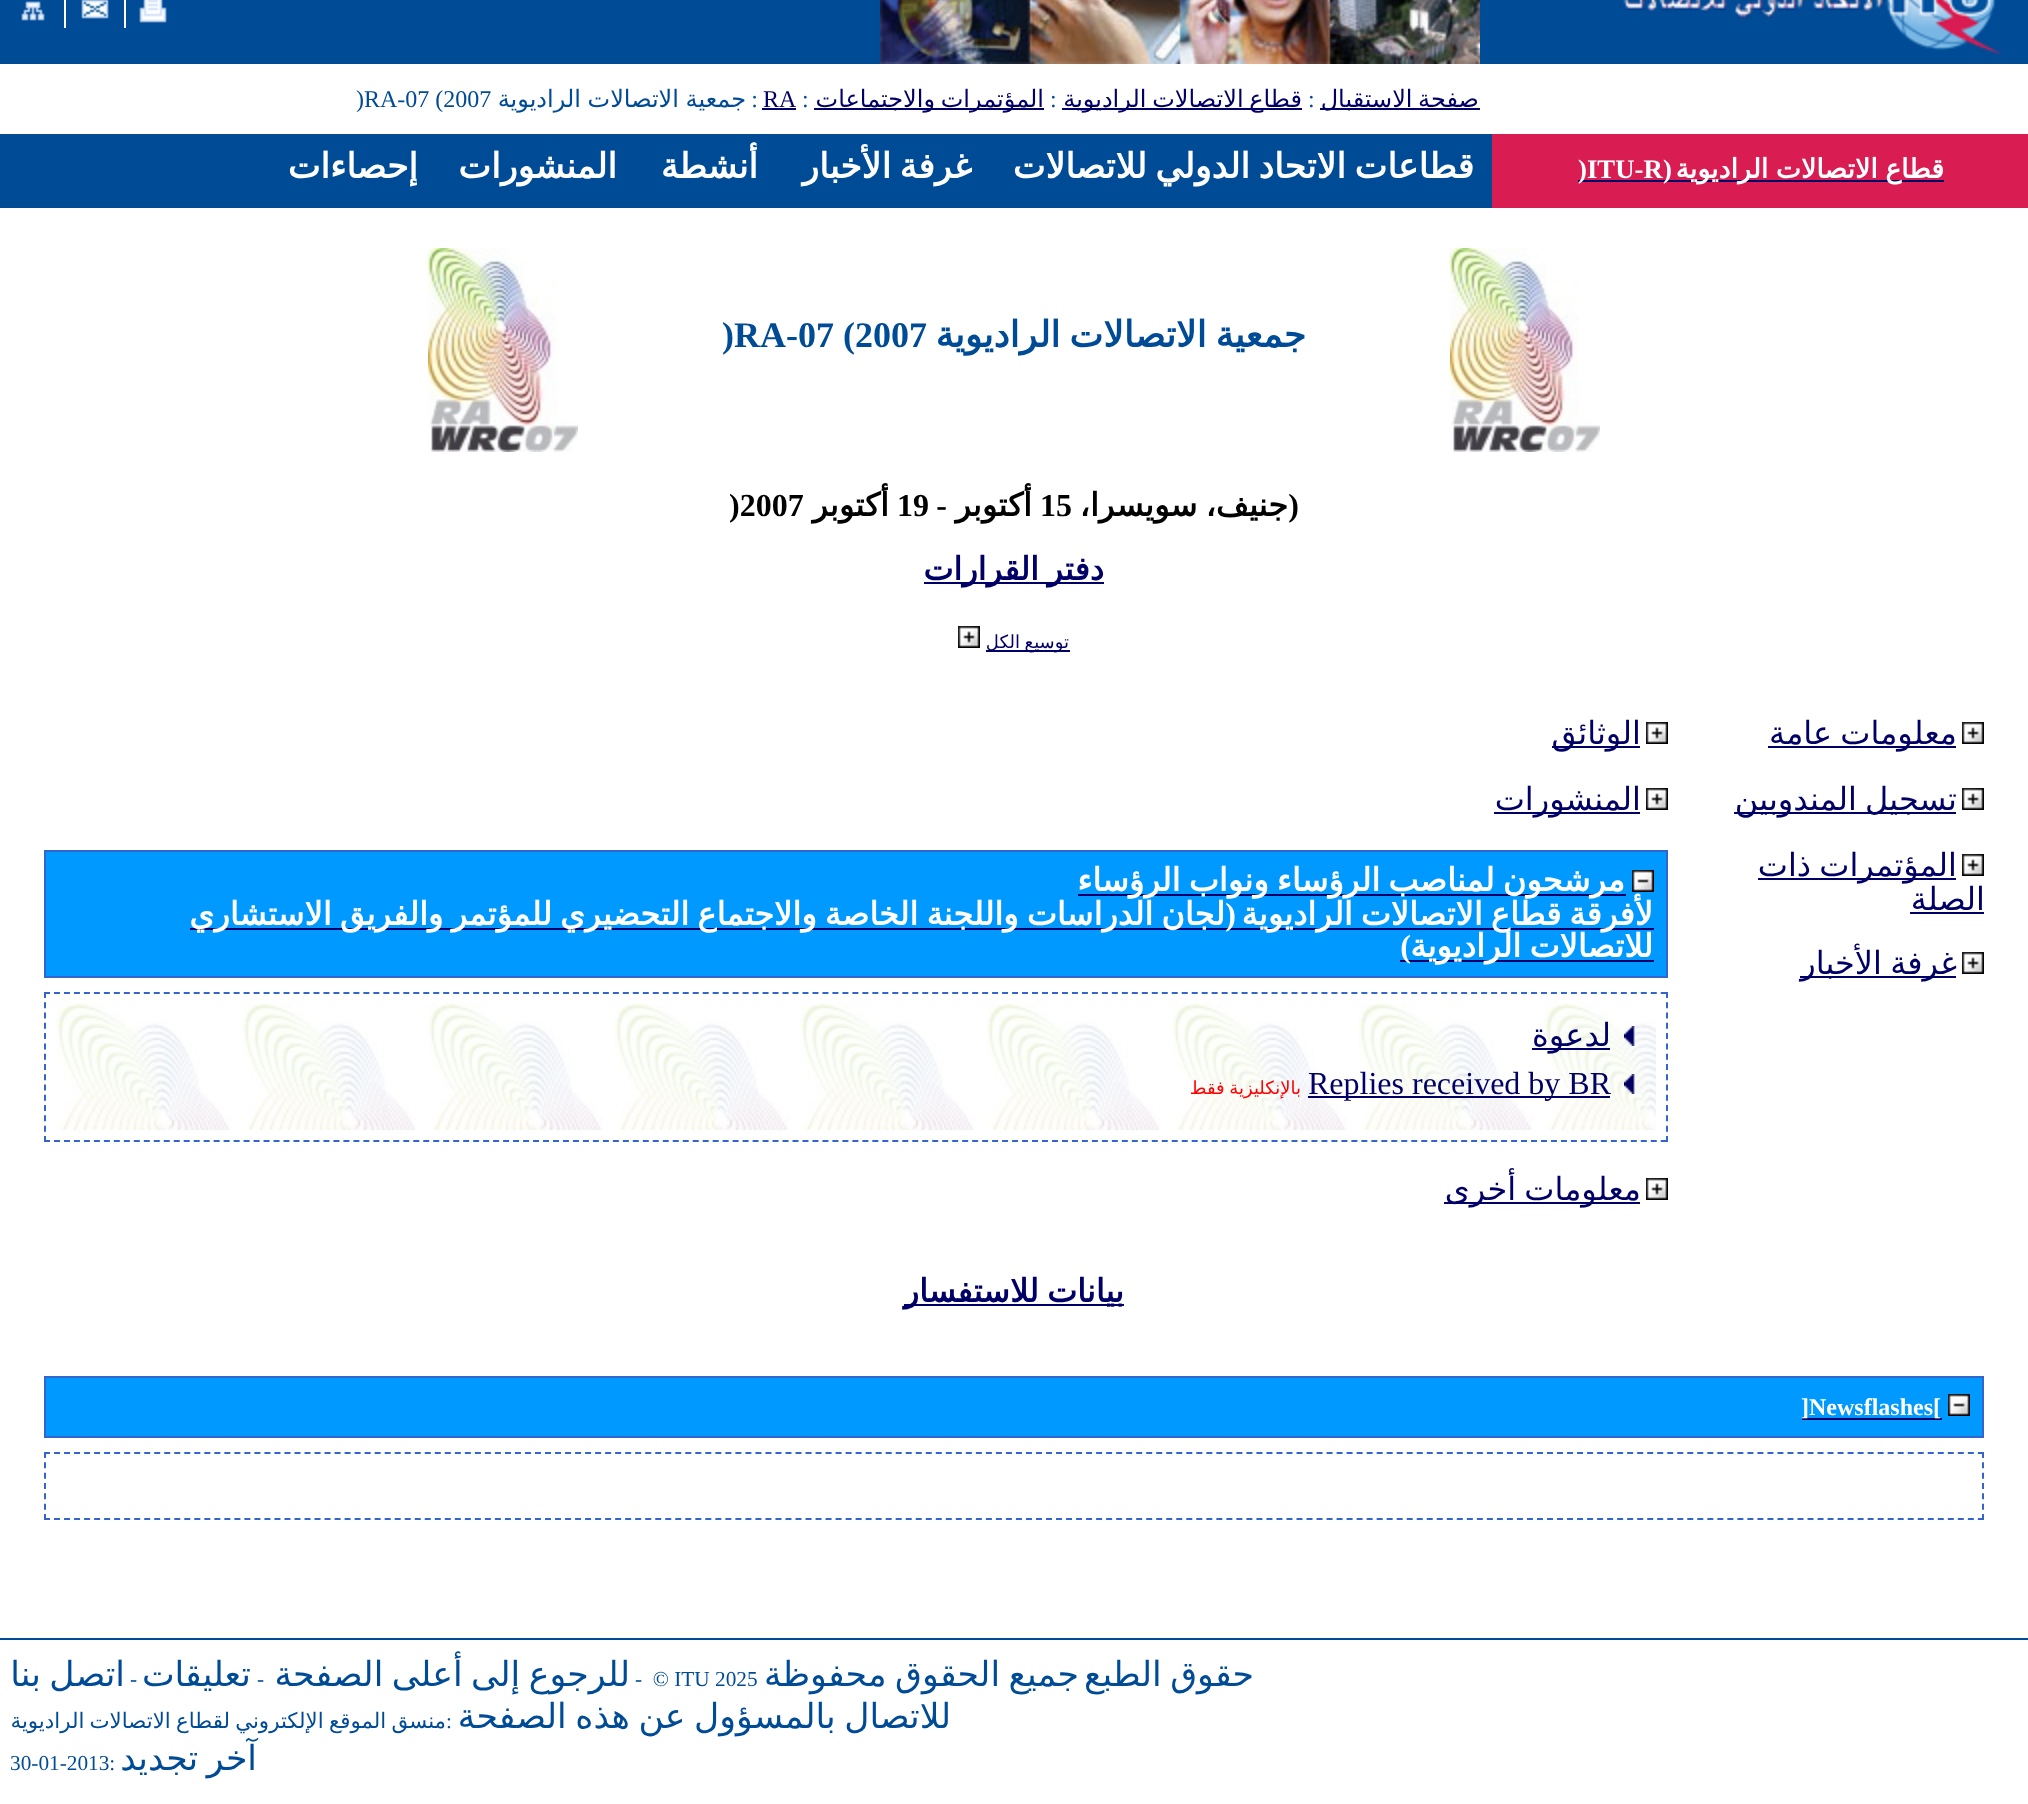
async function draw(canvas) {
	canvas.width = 2028;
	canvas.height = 1804;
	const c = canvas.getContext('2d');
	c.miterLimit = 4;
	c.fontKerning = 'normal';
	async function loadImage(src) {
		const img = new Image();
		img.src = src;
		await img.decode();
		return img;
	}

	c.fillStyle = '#fff';
	c.fillRect(0, 0, 2028, 1804);
	c.fillStyle = '#004b96';
	c.fillRect(0, 0, 2028, 64);
	c.drawImage(await loadImage('img1.png'), 1623, 0, 379, 55);
	c.drawImage(await loadImage('img2.png'), 880, 0, 600, 64);
	c.drawImage(await loadImage('img3.png'), 139, 0, 28, 23);
	c.fillStyle = '#fff';
	c.fillRect(124, 0, 2, 28);
	c.drawImage(await loadImage('img4.png'), 81, 0, 28, 19);
	c.fillRect(64, 0, 2, 28);
	c.drawImage(await loadImage('img5.png'), 21, 1, 24, 20);
	c.fillStyle = '#006';
	c.fillRect(1320, 108, 160, 2);
	c.wordSpacing = '-2px';
	c.direction = 'rtl';
	c.font = '24px DejaVu Sans';
	c.fillText('صفحة الاستقبال', 1479, 107);
	c.wordSpacing = '0px';
	c.direction = 'ltr';
	c.font = '24px Liberation Serif';
	c.fillStyle = '#004b96';
	c.fillText(':', 1308, 107);
	c.fillStyle = '#006';
	c.fillRect(1062, 108, 240, 2);
	c.wordSpacing = '-2px';
	c.direction = 'rtl';
	c.font = '24px DejaVu Sans';
	c.fillText('قطاع الاتصالات الراديوية', 1302, 107);
	c.wordSpacing = '0px';
	c.direction = 'ltr';
	c.font = '24px Liberation Serif';
	c.fillStyle = '#004b96';
	c.fillText(':', 1050, 107);
	c.fillStyle = '#006';
	c.fillRect(814, 108, 230, 2);
	c.wordSpacing = '-2px';
	c.direction = 'rtl';
	c.font = '24px DejaVu Sans';
	c.fillText('المؤتمرات والاجتماعات', 1044, 107);
	c.wordSpacing = '0px';
	c.direction = 'ltr';
	c.font = '24px Liberation Serif';
	c.fillStyle = '#004b96';
	c.fillText(':', 802, 107);
	c.fillStyle = '#006';
	c.fillText('RA', 763, 107);
	c.fillRect(762, 108, 34, 2);
	c.direction = 'rtl';
	c.fillStyle = '#004b96';
	c.fillText(':', 758, 107);
	c.wordSpacing = '-1px';
	c.font = '24px DejaVu Sans';
	c.fillText('جمعية الاتصالات الراديوية', 746, 107);
	c.wordSpacing = '0px';
	c.direction = 'ltr';
	c.font = '24px Liberation Serif';
	c.fillText(')RA-07 (2007', 356, 107);
	c.fillStyle = '#d91d52';
	c.fillRect(1492, 134, 536, 74);
	c.fillStyle = '#006';
	c.fillRect(1578, 180, 84, 2);
	c.font = 'bold 26.75px Liberation Serif';
	c.fillStyle = '#fff';
	c.fillText(')ITU-R', 1578, 178);
	c.fillStyle = '#006';
	c.fillRect(1662, 180, 282, 2);
	c.wordSpacing = '-1px';
	c.direction = 'rtl';
	c.font = 'bold 26.75px DejaVu Sans';
	c.fillStyle = '#fff';
	c.fillText('قطاع الاتصالات الراديوية', 1944, 178);
	c.wordSpacing = '0px';
	c.font = 'bold 26.75px Liberation Serif';
	c.fillText('(', 1672, 178);
	c.fillStyle = '#004b96';
	c.fillRect(0, 134, 1492, 74);
	c.fillRect(0, 1638, 2028, 2);
	c.drawImage(await loadImage('img6.png'), 1450, 248, 150, 204);
	c.wordSpacing = '-2.5px';
	c.font = 'bold 36px DejaVu Sans';
	c.fillText('جمعية الاتصالات الراديوية', 1306, 347);
	c.wordSpacing = '0px';
	c.direction = 'ltr';
	c.font = 'bold 36px Liberation Serif';
	c.fillText(')RA-07 (2007', 722, 347);
	c.drawImage(await loadImage('img6.png'), 428, 248, 150, 204);
	c.direction = 'rtl';
	c.font = 'bold 32px Liberation Serif';
	c.fillStyle = '#000';
	c.fillText('(', 1299, 516);
	c.wordSpacing = '-2px';
	c.font = 'bold 32px DejaVu Sans';
	c.fillText('جنيف، سويسرا،', 1288, 516);
	c.wordSpacing = '0px';
	c.direction = 'ltr';
	c.font = 'bold 32px Liberation Serif';
	c.fillText('15', 1040, 516);
	c.direction = 'rtl';
	c.font = 'bold 32px DejaVu Sans';
	c.fillText('أكتوبر', 1032, 516);
	c.font = 'bold 32px Liberation Serif';
	c.fillText('-', 947, 516);
	c.direction = 'ltr';
	c.fillText('19', 897, 516);
	c.direction = 'rtl';
	c.font = 'bold 32px DejaVu Sans';
	c.fillText('أكتوبر', 889, 516);
	c.direction = 'ltr';
	c.font = 'bold 32px Liberation Serif';
	c.fillText(')2007', 729, 516);
	c.fillStyle = '#006';
	c.fillRect(924, 582, 180, 2);
	c.wordSpacing = '-2px';
	c.direction = 'rtl';
	c.font = 'bold 32px DejaVu Sans';
	c.fillText('دفتر القرارات', 1104, 580);
	c.fillRect(986, 650, 84, 2);
	c.wordSpacing = '-1px';
	c.font = '18px DejaVu Sans';
	c.fillText('توسيع الكل', 1069, 648);
	c.drawImage(await loadImage('img7.png'), 958, 626, 22, 22);
	c.drawImage(await loadImage('img7.png'), 1962, 722, 22, 22);
	c.fillRect(1768, 746, 188, 2);
	c.wordSpacing = '-2px';
	c.font = '32px DejaVu Sans';
	c.fillText('معلومات عامة', 1957, 744);
	c.drawImage(await loadImage('img7.png'), 1962, 788, 22, 22);
	c.fillRect(1734, 812, 222, 2);
	c.fillText('تسجيل المندوبين', 1957, 810);
	c.drawImage(await loadImage('img7.png'), 1962, 854, 22, 22);
	c.fillRect(1758, 878, 198, 2);
	c.fillText('المؤتمرات ذات', 1957, 876);
	c.wordSpacing = '0px';
	c.fillText('الصلة', 1985, 910);
	c.fillRect(1910, 912, 74, 2);
	c.drawImage(await loadImage('img7.png'), 1962, 952, 22, 22);
	c.fillRect(1800, 976, 156, 2);
	c.wordSpacing = '-2px';
	c.fillText('غرفة الأخبار', 1957, 974);
	c.drawImage(await loadImage('img7.png'), 1646, 722, 22, 22);
	c.fillRect(1552, 746, 88, 2);
	c.wordSpacing = '0px';
	c.fillText('الوثائق', 1641, 744);
	c.drawImage(await loadImage('img7.png'), 1646, 788, 22, 22);
	c.fillRect(1494, 812, 146, 2);
	c.fillText('المنشورات', 1641, 810);
	c.fillStyle = '#09f';
	c.beginPath();
	c.rect(45, 851, 1622, 126);
	c.fill();
	c.strokeStyle = '#36c';
	c.lineWidth = 2;
	c.stroke();
	c.drawImage(await loadImage('img8.png'), 1632, 870, 22, 22);
	c.fillStyle = '#006';
	c.fillRect(1078, 894, 548, 2);
	c.wordSpacing = '-2px';
	c.font = 'bold 32px DejaVu Sans';
	c.fillStyle = '#fff';
	c.fillText('مرشحون لمناصب الرؤساء ونواب الرؤساء', 1625, 891);
	c.fillStyle = '#006';
	c.fillRect(190, 928, 1464, 2);
	c.fillStyle = '#fff';
	c.fillText('لأفرقة قطاع الاتصالات الراديوية', 1653, 925);
	c.fillText('لجان الدراسات واللجنة الخاصة والاجتماع التحضيري للمؤتمر والفريق الاستشاري', 1225, 925);
	c.wordSpacing = '0px';
	c.font = 'bold 32px Liberation Serif';
	c.fillText('(', 1236, 925);
	c.fillStyle = '#006';
	c.fillRect(1400, 960, 254, 2);
	c.wordSpacing = '-2px';
	c.font = 'bold 32px DejaVu Sans';
	c.fillStyle = '#fff';
	c.fillText('للاتصالات الراديوية', 1653, 957);
	c.wordSpacing = '0px';
	c.font = 'bold 32px Liberation Serif';
	c.fillText(')', 1411, 957);
	c.beginPath();
	c.moveTo(44, 993);
	c.lineTo(1668, 993);
	c.setLineDash([6, 3.98]);
	c.stroke();
	c.beginPath();
	c.moveTo(1667, 992);
	c.lineTo(1667, 1142);
	c.setLineDash([6, 4.28]);
	c.stroke();
	c.beginPath();
	c.moveTo(44, 1141);
	c.lineTo(1668, 1141);
	c.setLineDash([6, 3.98]);
	c.stroke();
	c.beginPath();
	c.moveTo(45, 992);
	c.lineTo(45, 1142);
	c.setLineDash([6, 4.28]);
	c.stroke();
	c.drawImage(await loadImage('img9.png'), 56, 1004, 1600, 126);
	c.drawImage(await loadImage('img10.png'), 1624, 1026, 11, 20);
	c.fillStyle = '#006';
	c.fillRect(1532, 1048, 78, 2);
	c.font = '32px DejaVu Sans';
	c.fillText('لدعوة', 1611, 1046);
	c.drawImage(await loadImage('img11.png'), 1624, 1074, 11, 20);
	c.fillRect(1308, 1096, 302, 2);
	c.direction = 'ltr';
	c.font = '32px Liberation Serif';
	c.fillText('Replies received by BR', 1308, 1094);
	c.wordSpacing = '-1px';
	c.direction = 'rtl';
	c.font = '18px DejaVu Sans';
	c.fillStyle = '#f00';
	c.fillText('بالإنكليزية فقط', 1301, 1094);
	c.drawImage(await loadImage('img7.png'), 1646, 1178, 22, 22);
	c.fillStyle = '#006';
	c.fillRect(1444, 1202, 196, 2);
	c.wordSpacing = '-2px';
	c.font = '32px DejaVu Sans';
	c.fillText('معلومات أخرى', 1641, 1200);
	c.fillRect(904, 1304, 220, 2);
	c.font = 'bold 32px DejaVu Sans';
	c.fillText('بيانات للاستفسار', 1124, 1302);
	c.fillStyle = '#09f';
	c.beginPath();
	c.rect(45, 1377, 1938, 60);
	c.fill();
	c.setLineDash([]);
	c.stroke();
	c.drawImage(await loadImage('img8.png'), 1948, 1394, 22, 22);
	c.fillStyle = '#006';
	c.fillRect(1802, 1418, 140, 2);
	c.wordSpacing = '0px';
	c.direction = 'ltr';
	c.font = 'bold 24px Liberation Serif';
	c.fillStyle = '#fff';
	c.fillText(']Newsflashes[', 1801, 1415);
	c.beginPath();
	c.moveTo(44, 1453);
	c.lineTo(1984, 1453);
	c.setLineDash([6, 4.02]);
	c.stroke();
	c.beginPath();
	c.moveTo(1983, 1452);
	c.lineTo(1983, 1520);
	c.setLineDash([6, 4.34]);
	c.stroke();
	c.beginPath();
	c.moveTo(44, 1519);
	c.lineTo(1984, 1519);
	c.setLineDash([6, 4.02]);
	c.stroke();
	c.beginPath();
	c.moveTo(45, 1452);
	c.lineTo(45, 1520);
	c.setLineDash([6, 4.34]);
	c.stroke();
	c.wordSpacing = '-2.5px';
	c.direction = 'rtl';
	c.font = '34.7px DejaVu Sans';
	c.fillStyle = '#004b96';
	c.fillText('حقوق الطبع', 1254, 1686);
	c.fillText('جميع الحقوق محفوظة', 1079, 1686);
	c.wordSpacing = '0px';
	c.direction = 'ltr';
	c.font = '21.3px Liberation Serif';
	c.fillText('-  © ITU 2025', 635, 1686);
	c.wordSpacing = '-2.5px';
	c.direction = 'rtl';
	c.font = '34.7px DejaVu Sans';
	c.fillText('للرجوع إلى أعلى الصفحة', 630, 1686);
	c.wordSpacing = '0px';
	c.direction = 'ltr';
	c.font = '21.3px Liberation Serif';
	c.fillText('-', 257, 1686);
	c.direction = 'rtl';
	c.font = '34.7px DejaVu Sans';
	c.fillText('تعليقات', 251, 1686);
	c.direction = 'ltr';
	c.font = '21.3px Liberation Serif';
	c.fillText('-', 130, 1686);
	c.wordSpacing = '-2.5px';
	c.direction = 'rtl';
	c.font = '34.7px DejaVu Sans';
	c.fillText('اتصل بنا', 125, 1686);
	c.fillText('للاتصال بالمسؤول عن هذه الصفحة', 951, 1728);
	c.wordSpacing = '0px';
	c.direction = 'ltr';
	c.font = '21.3px Liberation Serif';
	c.fillText(':', 446, 1728);
	c.wordSpacing = '-1.5px';
	c.direction = 'rtl';
	c.font = '21.3px DejaVu Sans';
	c.fillText('منسق الموقع الإلكتروني لقطاع الاتصالات الراديوية', 446, 1728);
	c.wordSpacing = '-2.5px';
	c.font = '34.7px DejaVu Sans';
	c.fillText('آخر تجديد', 257, 1770);
	c.wordSpacing = '0px';
	c.direction = 'ltr';
	c.font = '21.3px Liberation Serif';
	c.fillText('30-01-2013:', 10, 1770);
	c.wordSpacing = '-2.5px';
	c.direction = 'rtl';
	c.font = 'bold 34.7px DejaVu Sans';
	c.fillStyle = '#fff';
	c.fillText('قطاعات الاتحاد الدولي للاتصالات', 1474, 178);
	c.fillText('غرفة الأخبار', 972, 178);
	c.wordSpacing = '0px';
	for (const [text, x, y] of [
		['أنشطة', 758, 178],
		['المنشورات', 617, 178],
		['إحصاءات', 418, 178],
	]) {
		c.fillText(text, x, y);
	}
}

draw(document.querySelector('canvas'));
